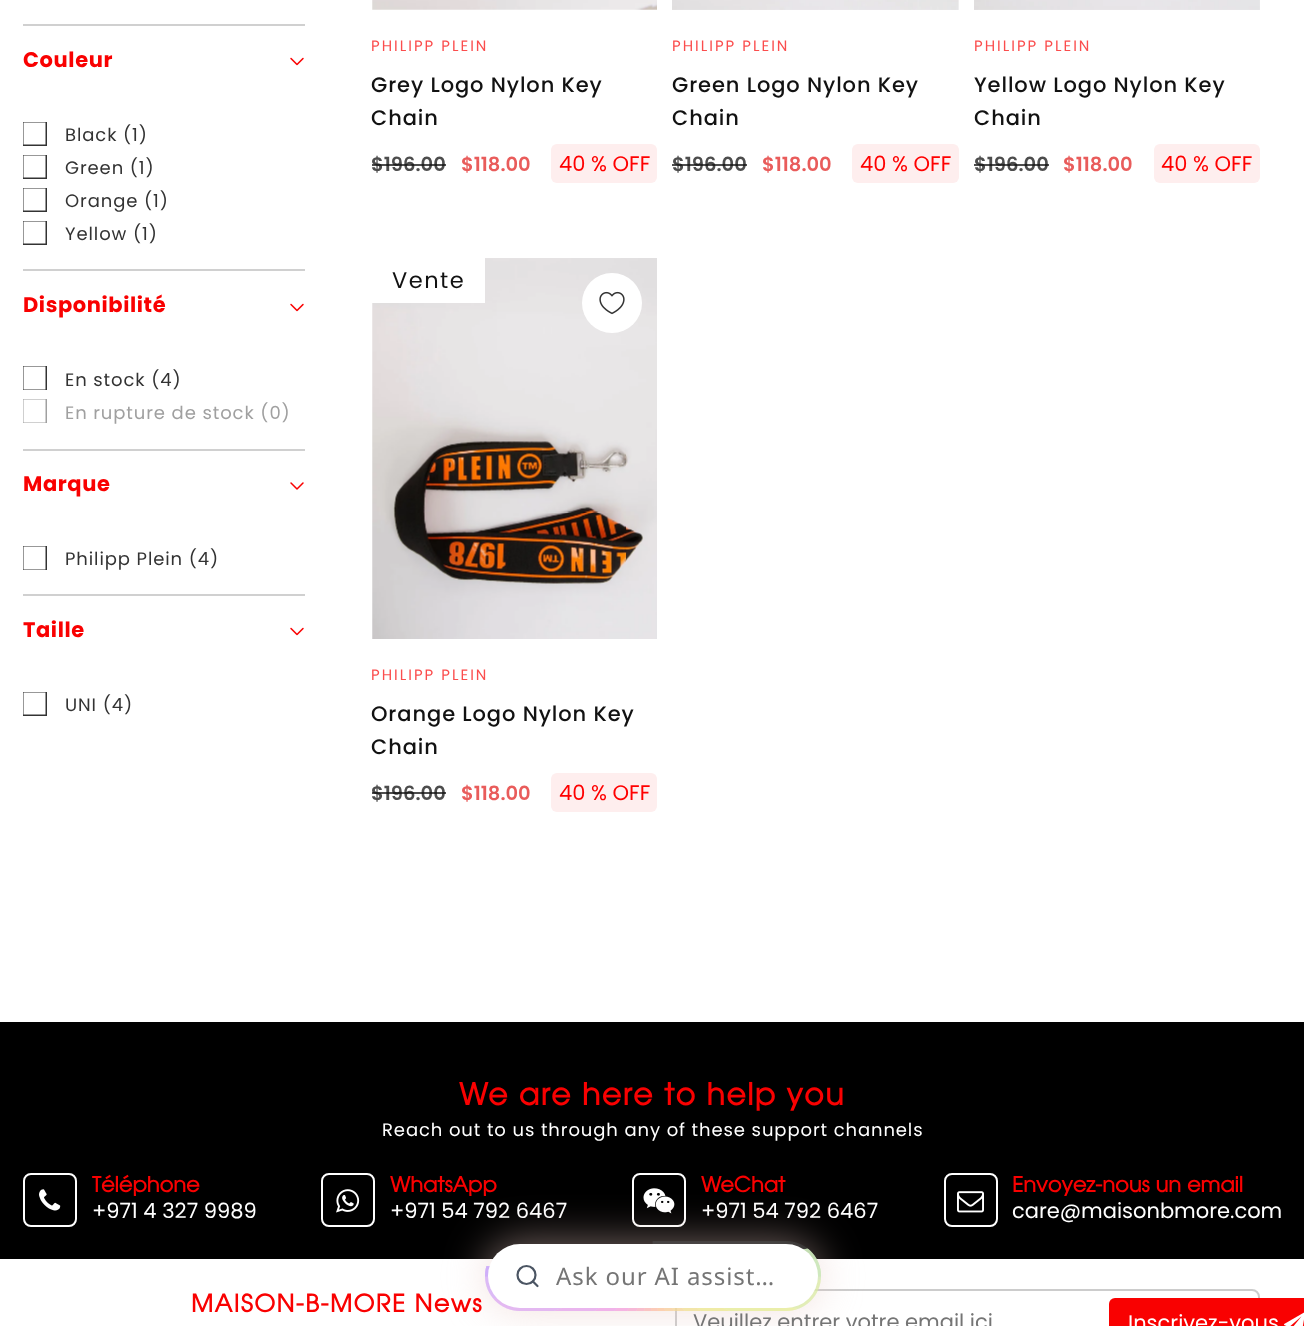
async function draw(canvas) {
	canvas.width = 1304;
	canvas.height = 1326;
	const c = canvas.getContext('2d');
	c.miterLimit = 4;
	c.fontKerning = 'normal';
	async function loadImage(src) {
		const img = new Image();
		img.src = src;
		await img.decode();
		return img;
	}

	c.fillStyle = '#fff';
	c.fillRect(0, 0, 1304, 1326);
	c.fillStyle = '#d0d0d0';
	c.fillRect(23, 24, 282, 2);
	c.fillRect(23, 269, 282, 2);
	c.letterSpacing = '0.6px';
	c.font = 'bold 21px Poppins';
	c.fillStyle = '#f90101';
	c.fillText('Couleur', 23, 67);
	c.drawImage(await loadImage('img1.png'), 290, 57, 14, 9);
	c.save();
	c.beginPath();
	c.rect(23, 122, 24, 24);
	c.clip();
	c.strokeStyle = '#333';
	c.lineWidth = 1.5;
	c.strokeRect(22.75, 121.75, 23.5, 23.5);
	c.restore();
	c.letterSpacing = '0.9px';
	c.font = '18px Poppins';
	c.fillStyle = '#333';
	c.fillText('Black (1)', 65, 141);
	c.save();
	c.beginPath();
	c.rect(23, 155, 24, 24);
	c.clip();
	c.strokeStyle = '#333';
	c.lineWidth = 1.5;
	c.strokeRect(22.75, 154.75, 23.5, 23.5);
	c.restore();
	c.fillText('Green (1)', 65, 174);
	c.save();
	c.beginPath();
	c.rect(23, 188, 24, 24);
	c.clip();
	c.strokeStyle = '#333';
	c.lineWidth = 1.5;
	c.strokeRect(22.75, 187.75, 23.5, 23.5);
	c.restore();
	c.fillText('Orange (1)', 65, 207);
	c.save();
	c.beginPath();
	c.rect(23, 221, 24, 24);
	c.clip();
	c.strokeStyle = '#333';
	c.lineWidth = 1.5;
	c.strokeRect(22.75, 220.75, 23.5, 23.5);
	c.restore();
	c.fillText('Yellow (1)', 65, 240);
	c.fillStyle = '#d0d0d0';
	c.fillRect(23, 449, 282, 2);
	c.letterSpacing = '0.6px';
	c.font = 'bold 21px Poppins';
	c.fillStyle = '#f90101';
	c.fillText('Disponibilité', 23, 312);
	c.drawImage(await loadImage('img1.png'), 290, 303, 14, 9);
	c.save();
	c.beginPath();
	c.rect(23, 366, 24, 24);
	c.clip();
	c.strokeStyle = '#333';
	c.lineWidth = 1.5;
	c.strokeRect(22.75, 365.75, 23.5, 24.5);
	c.restore();
	c.letterSpacing = '0.9px';
	c.font = '18px Poppins';
	c.fillStyle = '#333';
	c.fillText('En stock (4)', 65, 386);
	c.save();
	c.beginPath();
	c.rect(23, 399, 24, 24);
	c.clip();
	c.strokeStyle = '#a0a0a0';
	c.lineWidth = 1.5;
	c.strokeRect(22.75, 398.75, 23.5, 24.5);
	c.restore();
	c.fillStyle = '#a0a0a0';
	c.fillText('En rupture de stock (0)', 65, 419);
	c.fillStyle = '#d0d0d0';
	c.fillRect(23, 594, 282, 2);
	c.letterSpacing = '0.6px';
	c.font = 'bold 21px Poppins';
	c.fillStyle = '#f90101';
	c.fillText('Marque', 23, 491);
	c.drawImage(await loadImage('img2.png'), 290, 482, 14, 8);
	c.save();
	c.beginPath();
	c.rect(23, 546, 24, 24);
	c.clip();
	c.strokeStyle = '#333';
	c.lineWidth = 1.5;
	c.strokeRect(22.75, 545.75, 23.5, 24.5);
	c.restore();
	c.letterSpacing = '0.9px';
	c.font = '18px Poppins';
	c.fillStyle = '#333';
	c.fillText('Philipp Plein (4)', 65, 565);
	c.letterSpacing = '0.6px';
	c.font = 'bold 21px Poppins';
	c.fillStyle = '#f90101';
	c.fillText('Taille', 23, 637);
	c.drawImage(await loadImage('img1.png'), 290, 627, 14, 9);
	c.save();
	c.beginPath();
	c.rect(23, 692, 24, 24);
	c.clip();
	c.strokeStyle = '#333';
	c.lineWidth = 1.5;
	c.strokeRect(22.75, 691.75, 23.5, 23.5);
	c.restore();
	c.letterSpacing = '0.9px';
	c.font = '18px Poppins';
	c.fillStyle = '#333';
	c.fillText('UNI (4)', 65, 711);
	c.drawImage(await loadImage('img3.png'), 372, 0, 285, 10);
	c.letterSpacing = '2px';
	c.font = '15px Poppins';
	c.fillStyle = '#fb4d4d';
	c.fillText('PHILIPP PLEIN', 371, 51);
	c.letterSpacing = '0.9px';
	c.font = '500 21px Poppins';
	c.fillStyle = '#121212';
	c.fillText('Grey Logo Nylon Key', 371, 92);
	c.fillText('Chain', 371, 125);
	c.letterSpacing = '0px';
	c.font = '600 19.5px Poppins';
	c.fillStyle = '#4d4d4d';
	c.fillText('$196.00', 371, 171);
	c.fillStyle = '#121212bf';
	c.fillRect(372, 164, 74, 2);
	c.fillStyle = '#e95c5b';
	c.fillText('$118.00', 461, 171);
	c.fillStyle = '#feeeee';
	c.beginPath();
	c.roundRect(551, 144, 106, 39, 6);
	c.fill();
	c.font = '21px Poppins';
	c.fillStyle = '#f00';
	c.fillText('40 % OFF', 559, 171);
	c.drawImage(await loadImage('img4.png'), 672, 0, 287, 10);
	c.letterSpacing = '2px';
	c.font = '15px Poppins';
	c.fillStyle = '#fb4d4d';
	c.fillText('PHILIPP PLEIN', 672, 51);
	c.letterSpacing = '0.9px';
	c.font = '500 21px Poppins';
	c.fillStyle = '#121212';
	c.fillText('Green Logo Nylon Key', 672, 92);
	c.fillText('Chain', 672, 125);
	c.letterSpacing = '0px';
	c.font = '600 19.5px Poppins';
	c.fillStyle = '#4d4d4d';
	c.fillText('$196.00', 672, 171);
	c.fillStyle = '#121212bf';
	c.fillRect(672, 164, 75, 2);
	c.fillStyle = '#e95c5b';
	c.fillText('$118.00', 762, 171);
	c.fillStyle = '#feeeee';
	c.beginPath();
	c.roundRect(852, 144, 107, 39, 6);
	c.fill();
	c.font = '21px Poppins';
	c.fillStyle = '#f00';
	c.fillText('40 % OFF', 860, 171);
	c.drawImage(await loadImage('img5.png'), 974, 0, 286, 10);
	c.letterSpacing = '2px';
	c.font = '15px Poppins';
	c.fillStyle = '#fb4d4d';
	c.fillText('PHILIPP PLEIN', 974, 51);
	c.letterSpacing = '0.9px';
	c.font = '500 21px Poppins';
	c.fillStyle = '#121212';
	c.fillText('Yellow Logo Nylon Key', 974, 92);
	c.fillText('Chain', 974, 125);
	c.letterSpacing = '0px';
	c.font = '600 19.5px Poppins';
	c.fillStyle = '#4d4d4d';
	c.fillText('$196.00', 974, 171);
	c.fillStyle = '#121212bf';
	c.fillRect(974, 164, 75, 2);
	c.fillStyle = '#e95c5b';
	c.fillText('$118.00', 1063, 171);
	c.fillStyle = '#feeeee';
	c.beginPath();
	c.roundRect(1154, 144, 106, 39, 6);
	c.fill();
	c.font = '21px Poppins';
	c.fillStyle = '#f00';
	c.fillText('40 % OFF', 1161, 171);
	c.drawImage(await loadImage('img6.png'), 372, 258, 285, 381);
	c.fillStyle = '#fff';
	c.beginPath();
	c.arc(612, 303, 30, 0, 2 * Math.PI);
	c.fill();
	c.drawImage(await loadImage('img7.png'), 599, 291, 26, 24);
	c.fillRect(372, 258, 113, 45);
	c.letterSpacing = '1.5px';
	c.font = '22.5px Poppins';
	c.fillStyle = '#121212';
	c.fillText('Vente', 392, 288);
	c.letterSpacing = '2px';
	c.font = '15px Poppins';
	c.fillStyle = '#fb4d4d';
	c.fillText('PHILIPP PLEIN', 371, 680);
	c.letterSpacing = '0.9px';
	c.font = '500 21px Poppins';
	c.fillStyle = '#121212';
	c.fillText('Orange Logo Nylon Key', 371, 721);
	c.fillText('Chain', 371, 754);
	c.letterSpacing = '0px';
	c.font = '600 19.5px Poppins';
	c.fillStyle = '#4d4d4d';
	c.fillText('$196.00', 371, 800);
	c.fillStyle = '#121212bf';
	c.fillRect(372, 792, 74, 2);
	c.fillStyle = '#e95c5b';
	c.fillText('$118.00', 461, 800);
	c.fillStyle = '#feeeee';
	c.beginPath();
	c.roundRect(551, 773, 106, 39, 6);
	c.fill();
	c.font = '21px Poppins';
	c.fillStyle = '#f00';
	c.fillText('40 % OFF', 559, 800);
	c.fillStyle = '#000';
	c.fillRect(0, 1022, 1304, 237);
	c.letterSpacing = '1.5px';
	c.font = 'bold 30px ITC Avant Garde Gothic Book';
	c.fillStyle = '#f90101';
	c.fillText('We are here to help you', 459, 1105);
	c.letterSpacing = '0.9px';
	c.font = '18px Poppins';
	c.fillStyle = '#fff';
	c.fillText('Reach out to us through any of these support channels', 382, 1136);
	c.beginPath();
	c.roundRect(24, 1174, 52, 52, 7);
	c.strokeStyle = '#fff';
	c.lineWidth = 2;
	c.stroke();
	c.drawImage(await loadImage('img8.png'), 39, 1189, 22, 22);
	c.letterSpacing = '0px';
	c.font = 'bold 21px ITC Avant Garde Gothic Book';
	c.fillStyle = '#f90101';
	c.fillText('Téléphone', 92, 1192);
	c.font = '21px Poppins';
	c.fillStyle = '#fff';
	c.fillText('+971 4 327 9989', 92, 1218);
	c.beginPath();
	c.roundRect(322, 1174, 52, 52, 7);
	c.stroke();
	c.drawImage(await loadImage('img9.png'), 336, 1189, 24, 24);
	c.font = 'bold 21px ITC Avant Garde Gothic Book';
	c.fillStyle = '#f90101';
	c.fillText('WhatsApp', 390, 1192);
	c.font = '21px Poppins';
	c.fillStyle = '#fff';
	c.fillText('+971 54 792 6467', 390, 1218);
	c.beginPath();
	c.roundRect(633, 1174, 52, 52, 7);
	c.stroke();
	c.drawImage(await loadImage('img10.png'), 643, 1188, 32, 26);
	c.font = 'bold 21px ITC Avant Garde Gothic Book';
	c.fillStyle = '#f90101';
	c.fillText('WeChat', 701, 1192);
	c.font = '21px Poppins';
	c.fillStyle = '#fff';
	c.fillText('+971 54 792 6467', 701, 1218);
	c.beginPath();
	c.roundRect(945, 1174, 52, 52, 7);
	c.stroke();
	c.drawImage(await loadImage('img11.png'), 957, 1191, 27, 22);
	c.font = 'bold 21px ITC Avant Garde Gothic Book';
	c.fillStyle = '#f90101';
	c.fillText('Envoyez-nous un email', 1012, 1192);
	c.font = '21px Poppins';
	c.fillStyle = '#fff';
	c.fillText('care@maisonbmore.com', 1012, 1218);
	c.beginPath();
	c.roundRect(676, 1290, 583, 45, 7);
	c.strokeStyle = '#ccc';
	c.stroke();
	c.fillStyle = '#e6c5bf80';
	c.filter = 'blur(21px)';
	c.beginPath();
	c.roundRect(485, 1241, 336, 70, 35);
	c.fill();
	c.filter = 'none';
	c.drawImage(await loadImage('img12.png'), 485, 1241, 336, 70);
	c.drawImage(await loadImage('img13.png'), 485, 1241, 336, 70);
	c.fillStyle = '#fff';
	c.beginPath();
	c.roundRect(488, 1244, 330, 64, 32);
	c.fill();
	c.beginPath();
	c.arc(526.5, 1275, 9, 0, 2 * Math.PI);
	c.strokeStyle = '#4b5563';
	c.lineWidth = 2.2;
	c.stroke();
	c.beginPath();
	c.moveTo(537.5, 1286);
	c.lineTo(533, 1281.5);
	c.lineCap = 'round';
	c.lineJoin = 'round';
	c.stroke();
	c.letterSpacing = '0.9px';
	c.font = '24px Noto Sans';
	c.fillStyle = '#757575';
	c.fillText('Ask our AI assist…', 556, 1285);
	c.letterSpacing = '1.5px';
	c.font = 'bold 24px ITC Avant Garde Gothic Book';
	c.fillStyle = '#f90101';
	c.fillText('MAISON-B-MORE News', 191, 1312);
	c.letterSpacing = '0px';
	c.font = '21px Poppins';
	c.fillStyle = '#757575';
	c.fillText('Veuillez entrer votre email ici', 693, 1329);
	c.fillStyle = '#f90101';
	c.beginPath();
	c.roundRect(1109, 1298, 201, 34, 6);
	c.fill();
	c.fillStyle = '#fff';
	c.fillText('Inscrivez-vous', 1128, 1330);
	c.drawImage(await loadImage('img14.png'), 1284, 1312, 20, 14);
}

draw(document.querySelector('canvas'));
